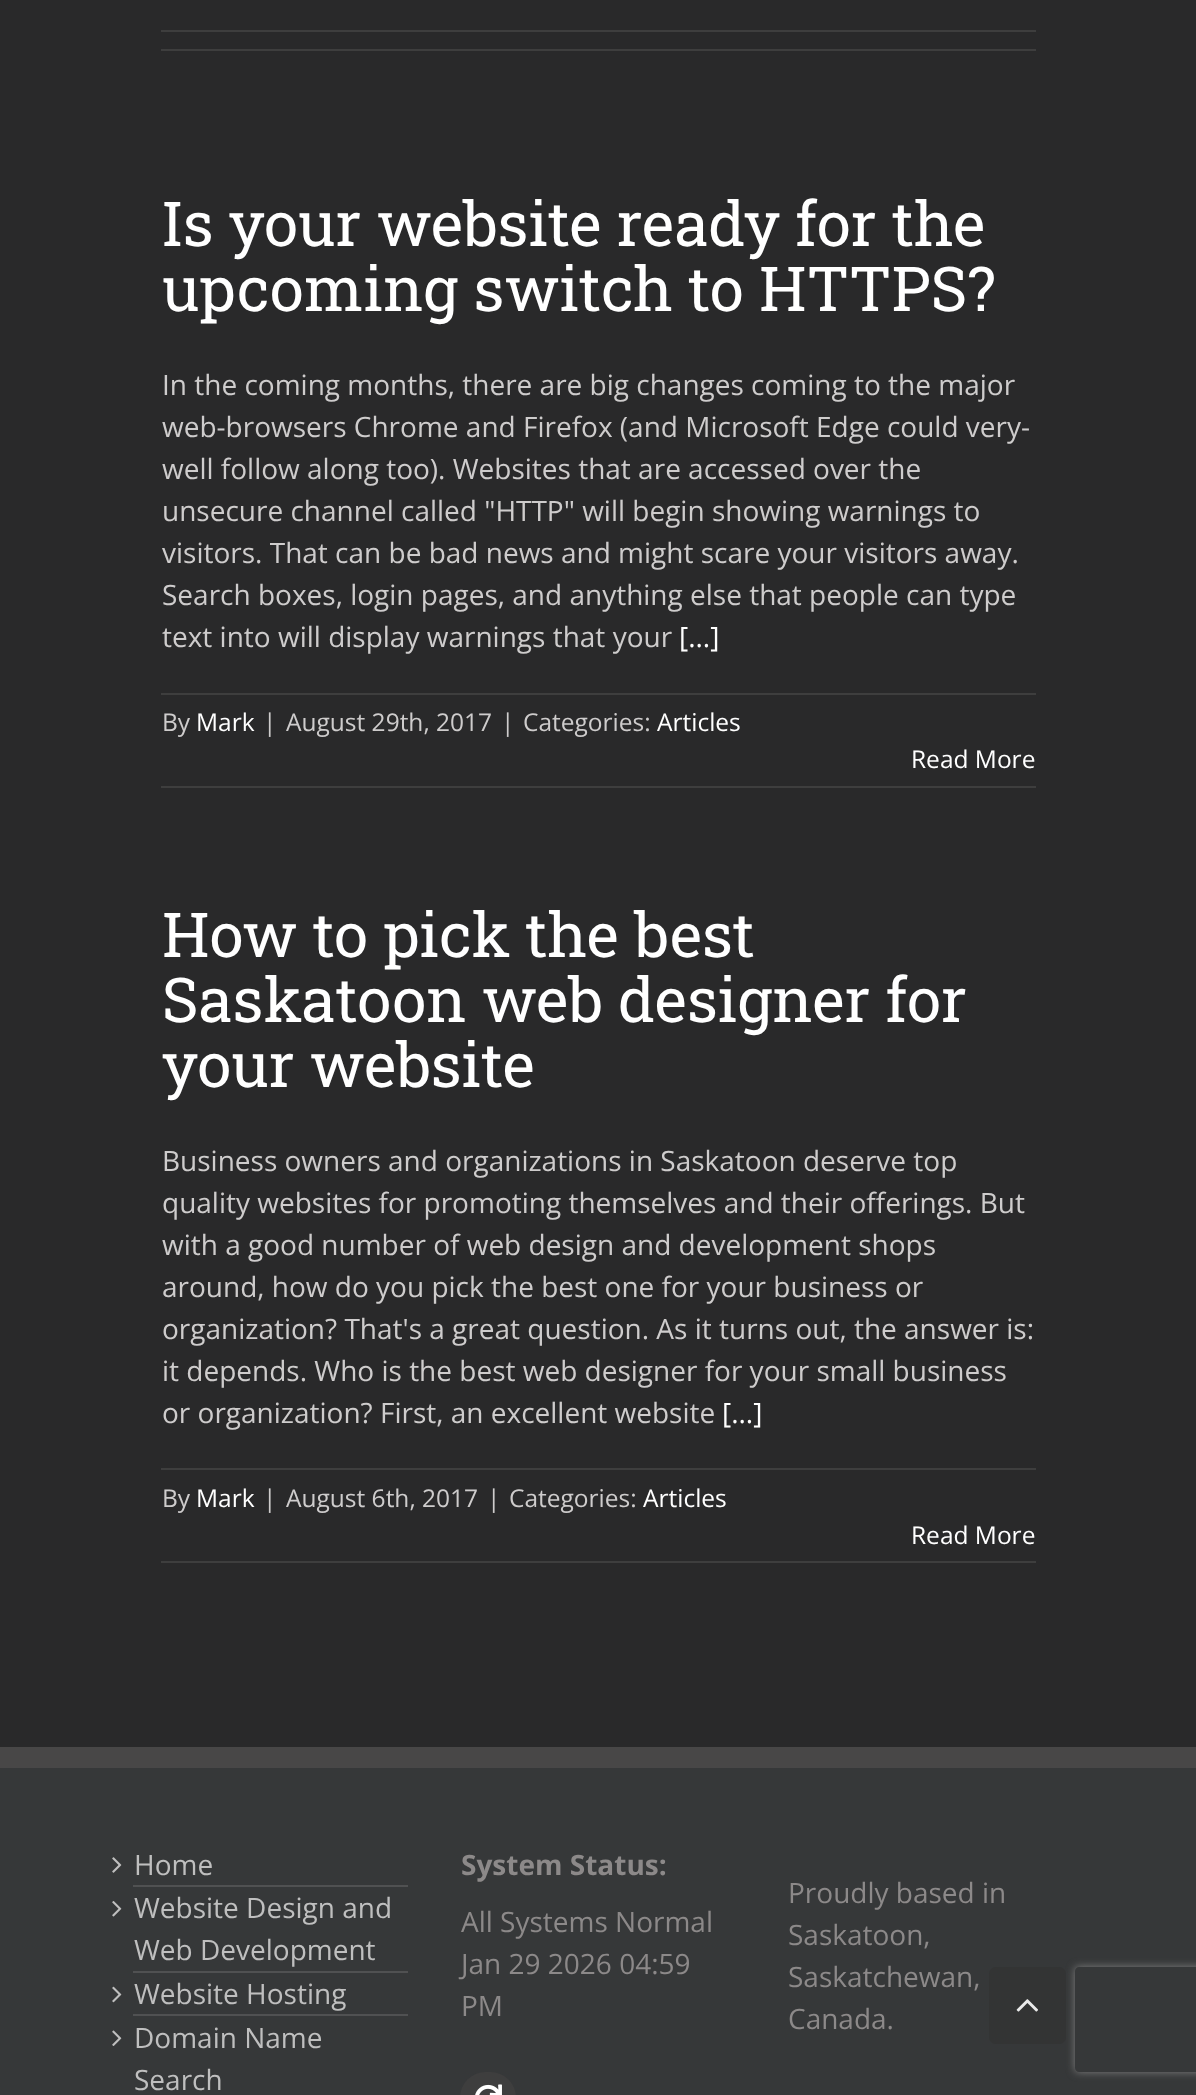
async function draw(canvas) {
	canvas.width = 1196;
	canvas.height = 2095;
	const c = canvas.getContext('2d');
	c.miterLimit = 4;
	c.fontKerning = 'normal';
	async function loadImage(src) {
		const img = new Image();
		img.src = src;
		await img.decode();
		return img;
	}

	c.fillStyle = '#29292a';
	c.fillRect(0, 0, 1196, 2095);
	c.fillStyle = '#3e3e3e';
	c.fillRect(161, 30, 875, 2);
	c.fillRect(161, 49, 875, 2);
	c.font = '61.8px Roboto Slab';
	c.fillStyle = '#fff';
	c.fillText('Is your website ready for the', 162, 246);
	c.fillText('upcoming switch to HTTPS?', 162, 311);
	c.font = '28px Open Sans';
	c.fillStyle = '#cecccc';
	for (const [text, x, y] of [
		['In the coming months, there are big changes coming to the major', 162, 395],
		['web-browsers Chrome and Firefox (and Microsoft Edge could very-', 162, 437],
		['well follow along too). Websites that are accessed over the', 162, 479],
		['unsecure channel called "HTTP" will begin showing warnings to', 162, 521],
		['visitors. That can be bad news and might scare your visitors away.', 162, 563],
		['Search boxes, login pages, and anything else that people can type', 162, 605],
		['text into will display warnings that your', 162, 647],
	]) {
		c.fillText(text, x, y);
	}
	c.fillStyle = '#fff';
	c.fillText('[...]', 679, 647);
	c.fillStyle = '#3e3e3e';
	c.fillRect(161, 693, 875, 2);
	c.fillRect(161, 786, 875, 2);
	c.font = '24.5px Open Sans';
	c.fillStyle = '#cecccc';
	c.fillText('By', 162, 731);
	c.fillStyle = '#fff';
	c.fillText('Mark', 196, 731);
	c.fillStyle = '#cecccc';
	for (const [text, x, y] of [
		['|', 263, 731],
		['August 29th, 2017', 286, 731],
		['|', 501, 731],
		['Categories:', 523, 731],
	]) {
		c.fillText(text, x, y);
	}
	c.fillStyle = '#fff';
	c.fillText('Articles', 657, 731);
	c.fillText('Read More', 911, 768);
	c.font = '61.8px Roboto Slab';
	for (const [text, x, y] of [
		['How to pick the best', 162, 957],
		['Saskatoon web designer for', 162, 1022],
		['your website', 162, 1087],
	]) {
		c.fillText(text, x, y);
	}
	c.font = '28px Open Sans';
	c.fillStyle = '#cecccc';
	for (const [text, x, y] of [
		['Business owners and organizations in Saskatoon deserve top', 162, 1171],
		['quality websites for promoting themselves and their offerings. But', 162, 1213],
		['with a good number of web design and development shops', 162, 1255],
		['around, how do you pick the best one for your business or', 162, 1297],
		['organization? That\'s a great question. As it turns out, the answer is:', 162, 1339],
		['it depends. Who is the best web designer for your small business', 162, 1381],
		['or organization? First, an excellent website', 162, 1423],
	]) {
		c.fillText(text, x, y);
	}
	c.fillStyle = '#fff';
	c.fillText('[...]', 722, 1423);
	c.fillStyle = '#3e3e3e';
	c.fillRect(161, 1468, 875, 2);
	c.fillRect(161, 1561, 875, 2);
	c.font = '24.5px Open Sans';
	c.fillStyle = '#cecccc';
	c.fillText('By', 162, 1507);
	c.fillStyle = '#fff';
	c.fillText('Mark', 196, 1507);
	c.fillStyle = '#cecccc';
	for (const [text, x, y] of [
		['|', 263, 1507],
		['August 6th, 2017', 286, 1507],
		['|', 487, 1507],
		['Categories:', 509, 1507],
	]) {
		c.fillText(text, x, y);
	}
	c.fillStyle = '#fff';
	c.fillText('Articles', 643, 1507);
	c.fillText('Read More', 911, 1544);
	for (const [x, y, w, h, color] of [
		[0, 1768, 1196, 327, '#363839'],
		[0, 1747, 1196, 21, '#484747'],
		[133, 1885, 275, 2, '#505152'],
	]) {
		c.fillStyle = color;
		c.fillRect(x, y, w, h);
	}
	c.drawImage(await loadImage('img1.png'), 112, 1857, 10, 16);
	c.font = '28px Open Sans';
	c.fillStyle = '#bfbfbf';
	c.fillText('Home', 134, 1875);
	c.fillStyle = '#505152';
	c.fillRect(133, 1971, 275, 2);
	c.drawImage(await loadImage('img2.png'), 112, 1901, 10, 16);
	c.fillStyle = '#bfbfbf';
	c.fillText('Website Design and', 134, 1918);
	c.fillText('Web Development', 134, 1960);
	c.fillStyle = '#505152';
	c.fillRect(133, 2014, 275, 2);
	c.drawImage(await loadImage('img3.png'), 112, 1986, 10, 17);
	c.fillStyle = '#bfbfbf';
	c.fillText('Website Hosting', 134, 2004);
	c.drawImage(await loadImage('img4.png'), 112, 2030, 10, 16);
	c.fillText('Domain Name', 134, 2048);
	c.fillText('Search', 134, 2090);
	c.font = 'bold 28px Open Sans';
	c.fillStyle = '#8c8989';
	c.fillText('System Status:', 461, 1875);
	c.font = '28px Open Sans';
	for (const [text, x, y] of [
		['All Systems Normal', 461, 1932],
		['Jan 29 2026 04:59', 461, 1974],
		['PM', 461, 2016],
	]) {
		c.fillText(text, x, y);
	}
	c.fillStyle = '#3e3e3e';
	c.beginPath();
	c.roundRect(460, 2072, 56, 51, 28);
	c.fill();
	c.drawImage(await loadImage('img5.png'), 475, 2084, 27, 11);
	c.fillStyle = '#8c8989';
	for (const [text, x, y] of [
		['Proudly based in', 788, 1903],
		['Saskatoon,', 788, 1945],
		['Saskatchewan,', 788, 1987],
		['Canada.', 788, 2029],
	]) {
		c.fillText(text, x, y);
	}
	c.save();
	c.beginPath();
	c.moveTo(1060, 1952);
	c.lineTo(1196, 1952);
	c.lineTo(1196, 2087);
	c.lineTo(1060, 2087);
	c.closePath();
	c.moveTo(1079, 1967);
	c.lineTo(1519, 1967);
	c.bezierCurveTo(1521, 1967, 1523, 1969, 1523, 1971);
	c.lineTo(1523, 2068);
	c.bezierCurveTo(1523, 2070, 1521, 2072, 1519, 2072);
	c.lineTo(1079, 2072);
	c.bezierCurveTo(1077, 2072, 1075, 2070, 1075, 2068);
	c.lineTo(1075, 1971);
	c.bezierCurveTo(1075, 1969, 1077, 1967, 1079, 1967);
	c.closePath();
	c.clip('evenodd');
	c.fillStyle = '#808080';
	c.filter = 'blur(4.5px)';
	c.beginPath();
	c.roundRect(1075, 1967, 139, 105, 4);
	c.fill();
	c.filter = 'none';
	c.restore();
	c.fillStyle = '#333434';
	c.beginPath();
	c.roundRect(989, 1967, 77, 77, 7);
	c.fill();
	c.drawImage(await loadImage('img6.png'), 1016, 1999, 22, 13);
}

draw(document.querySelector('canvas'));
